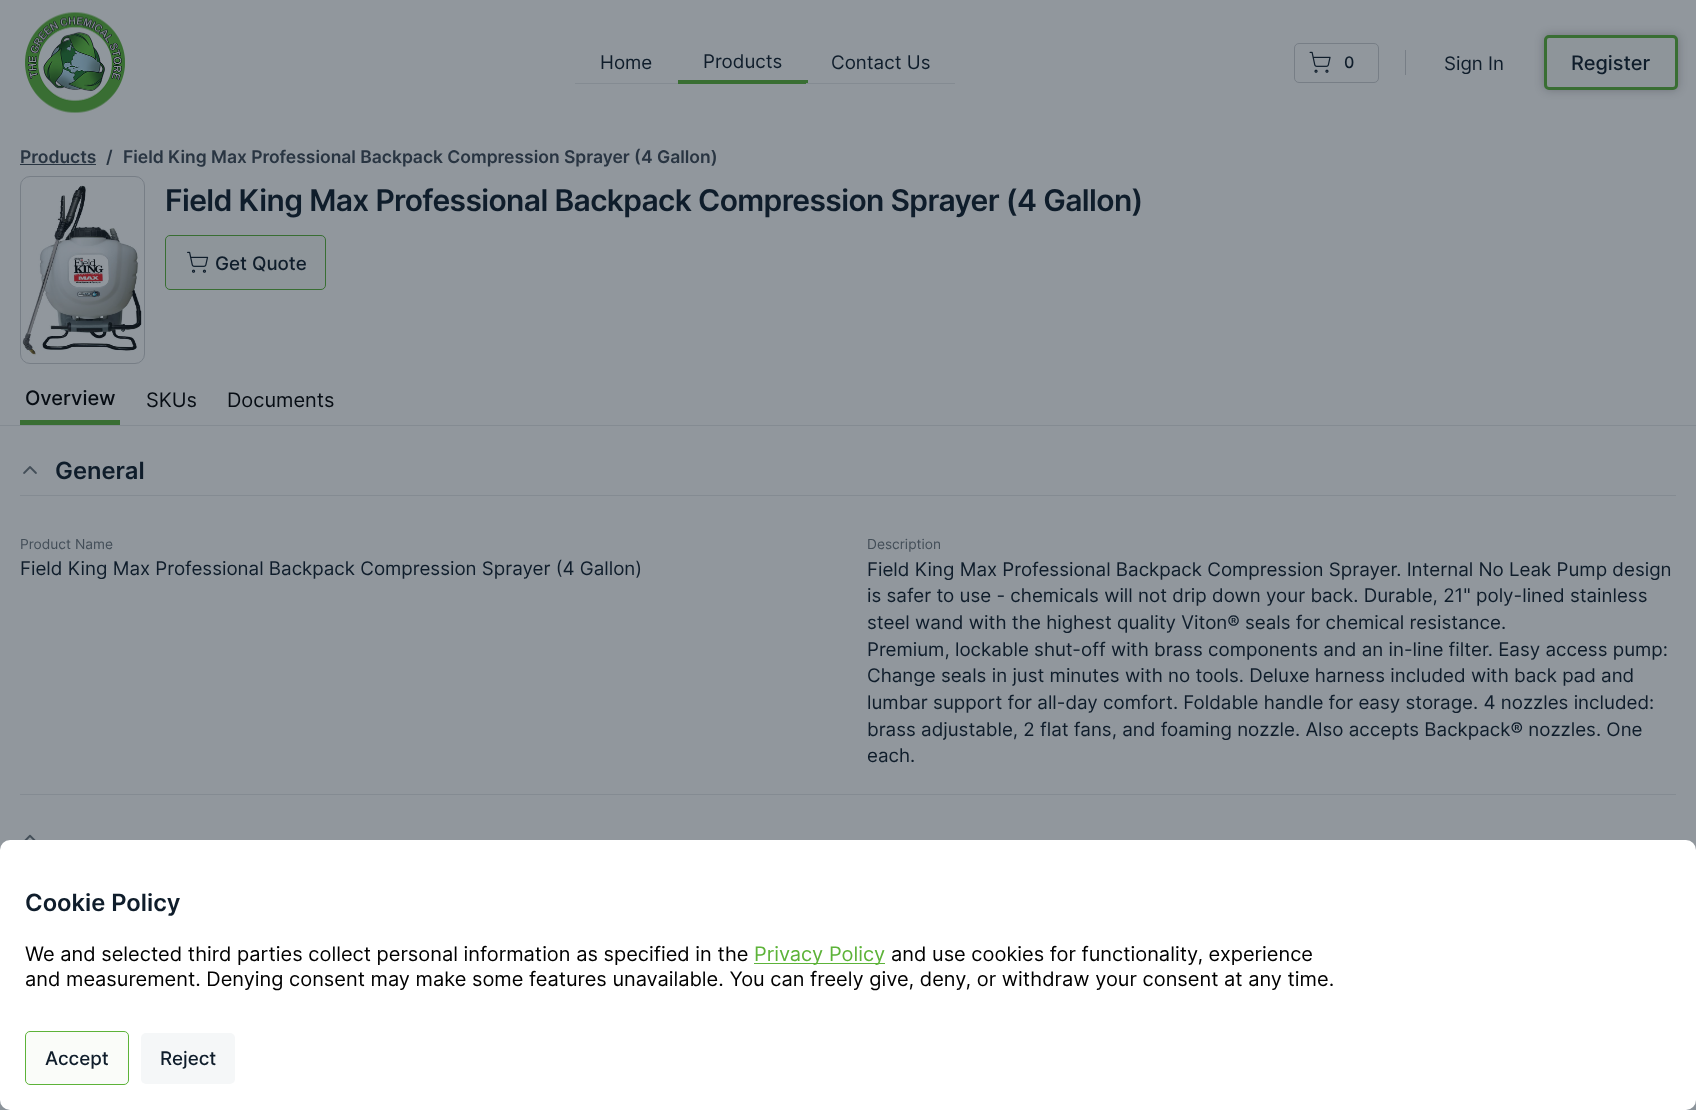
async function draw(canvas) {
	canvas.width = 1696;
	canvas.height = 1110;
	const c = canvas.getContext('2d');
	c.miterLimit = 4;
	c.fontKerning = 'normal';
	async function loadImage(src) {
		const img = new Image();
		img.src = src;
		await img.decode();
		return img;
	}

	c.fillStyle = '#91979d';
	c.fillRect(0, 0, 1696, 1110);
	c.drawImage(await loadImage('img1.png'), 25, 12, 100, 101);
	c.fillStyle = '#848b92';
	c.fillRect(575, 83, 103, 1);
	c.font = '18.75px Inter';
	c.fillStyle = '#0f1d2b';
	c.fillText('Home', 600, 69);
	c.fillStyle = '#396e33';
	c.fillRect(678, 80, 130, 4);
	c.fillStyle = '#0f1d2b';
	c.fillText('Products', 703, 68);
	c.fillStyle = '#848b92';
	c.fillRect(806, 83, 149, 1);
	c.fillStyle = '#0f1d2b';
	c.fillText('Contact Us', 831, 69);
	c.beginPath();
	c.roundRect(1294.5, 43.5, 84, 39, 4.5);
	c.strokeStyle = '#777e86';
	c.stroke();
	c.drawImage(await loadImage('img2.png'), 1309, 51, 22, 22);
	c.font = '500 16px Inter';
	c.fillText('0', 1344, 68);
	c.fillStyle = '#777e86';
	c.fillRect(1405, 50, 1, 25);
	c.font = '18.75px Inter';
	c.fillStyle = '#0f1d2b';
	c.fillText('Sign In', 1444, 70);
	c.fillStyle = '#070d1440';
	c.filter = 'blur(5px)';
	c.beginPath();
	c.roundRect(1544, 35, 134, 55, 5);
	c.fill();
	c.filter = 'none';
	c.fillStyle = '#8e959a';
	c.beginPath();
	c.roundRect(1545.5, 36.5, 131, 52, 3.5);
	c.fill();
	c.strokeStyle = '#396e33';
	c.lineWidth = 3;
	c.stroke();
	c.font = '500 20px Inter';
	c.fillStyle = '#0f1d2b';
	c.fillText('Register', 1571, 70);
	c.font = '600 17.5px Inter';
	c.fillStyle = '#293542';
	c.fillText('Products', 20, 163);
	c.fillRect(20, 164, 76, 1);
	c.fillText('/', 106, 163);
	c.fillText('Field King Max Professional Backpack Compression Sprayer (4 Gallon)', 123, 163);
	c.beginPath();
	c.roundRect(20.5, 176.5, 124, 187, 9.5);
	c.strokeStyle = '#777e86';
	c.lineWidth = 1;
	c.stroke();
	c.drawImage(await loadImage('img3.png'), 22, 185, 120, 171);
	c.letterSpacing = '-0.62px';
	c.font = '600 30px Inter';
	c.fillStyle = '#0f1d2b';
	c.fillText('Field King Max Professional Backpack Compression Sprayer (4 Gallon)', 165, 211);
	c.fillStyle = '#8e959a';
	c.beginPath();
	c.roundRect(165.5, 235.5, 160, 54, 4.5);
	c.fill();
	c.strokeStyle = '#396e33';
	c.stroke();
	c.drawImage(await loadImage('img4.png'), 187, 251, 22, 22);
	c.letterSpacing = '0px';
	c.font = '500 18.75px Inter';
	c.fillStyle = '#0f1d2b';
	c.fillText('Get Quote', 215, 270);
	c.fillStyle = '#848b92';
	c.fillRect(0, 425, 1696, 1);
	c.fillStyle = '#396e33';
	c.fillRect(20, 420, 100, 5);
	c.font = '500 20px Inter';
	c.fillStyle = '#070d14';
	c.fillText('Overview', 25, 405);
	c.font = '20px Inter';
	c.fillText('SKUs', 146, 407);
	c.fillText('Documents', 227, 407);
	c.fillStyle = '#848b92';
	c.fillRect(20, 495, 1656, 1);
	c.drawImage(await loadImage('img5.png'), 23, 466, 14, 8);
	c.font = '600 23.75px Inter';
	c.fillStyle = '#0f1d2b';
	c.fillText('General', 55, 479);
	c.fillStyle = '#848b92';
	c.fillRect(20, 794, 1656, 1);
	c.font = '13.75px Inter';
	c.fillStyle = '#434e58';
	c.fillText('Product Name', 20, 549);
	c.font = '18.75px Inter';
	c.fillStyle = '#0f1d2b';
	c.fillText('Field King Max Professional Backpack Compression Sprayer (4 Gallon)', 20, 575);
	c.font = '13.75px Inter';
	c.fillStyle = '#434e58';
	c.fillText('Description', 867, 549);
	c.font = '18.75px Inter';
	c.fillStyle = '#0f1d2b';
	for (const [text, x, y] of [
		['Field King Max Professional Backpack Compression Sprayer. Internal No Leak Pump design', 867, 576],
		['is safer to use - chemicals will not drip down your back. Durable, 21" poly-lined stainless', 867, 602],
		['steel wand with the highest quality Viton® seals for chemical resistance.', 867, 629],
		['Premium, lockable shut-off with brass components and an in-line filter. Easy access pump:', 867, 656],
		['Change seals in just minutes with no tools. Deluxe harness included with back pad and', 867, 682],
		['lumbar support for all-day comfort. Foldable handle for easy storage. 4 nozzles included:', 867, 709],
		['brass adjustable, 2 flat fans, and foaming nozzle. Also accepts Backpack® nozzles. One', 867, 736],
		['each.', 867, 762],
	]) {
		c.fillText(text, x, y);
	}
	c.drawImage(await loadImage('img6.png'), 24, 834, 12, 6);
	c.fillStyle = '#8b939a';
	c.fillRect(0, 1100, 1696, 10);
	c.fillStyle = '#fff';
	c.beginPath();
	c.roundRect(0, 840, 1696, 270, 10);
	c.fill();
	c.font = '600 23.75px Inter';
	c.fillStyle = '#0f1d2b';
	c.fillText('Cookie Policy', 25, 911);
	c.font = '20px Inter';
	c.fillStyle = '#000';
	c.fillText('We and selected third parties collect personal information as specified in the', 25, 961);
	c.fillStyle = '#5db339';
	c.fillRect(754, 963, 131, 1);
	c.fillText('Privacy Policy', 754, 961);
	c.fillStyle = '#000';
	c.fillText('and use cookies for functionality, experience', 891, 961);
	c.fillText('and measurement. Denying consent may make some features unavailable. You can freely give, deny, or withdraw your consent at any time.', 25, 986);
	c.fillStyle = '#fafcf9';
	c.beginPath();
	c.roundRect(25.5, 1031.5, 103, 53, 4.5);
	c.fill();
	c.strokeStyle = '#5db339';
	c.stroke();
	c.font = '500 18.75px Inter';
	c.fillStyle = '#0f1d2b';
	c.fillText('Accept', 45, 1065);
	c.fillStyle = '#f5f7f8';
	c.beginPath();
	c.roundRect(141, 1033, 94, 51, 5);
	c.fill();
	c.fillStyle = '#0f1d2b';
	c.fillText('Reject', 160, 1065);
}

draw(document.querySelector('canvas'));
